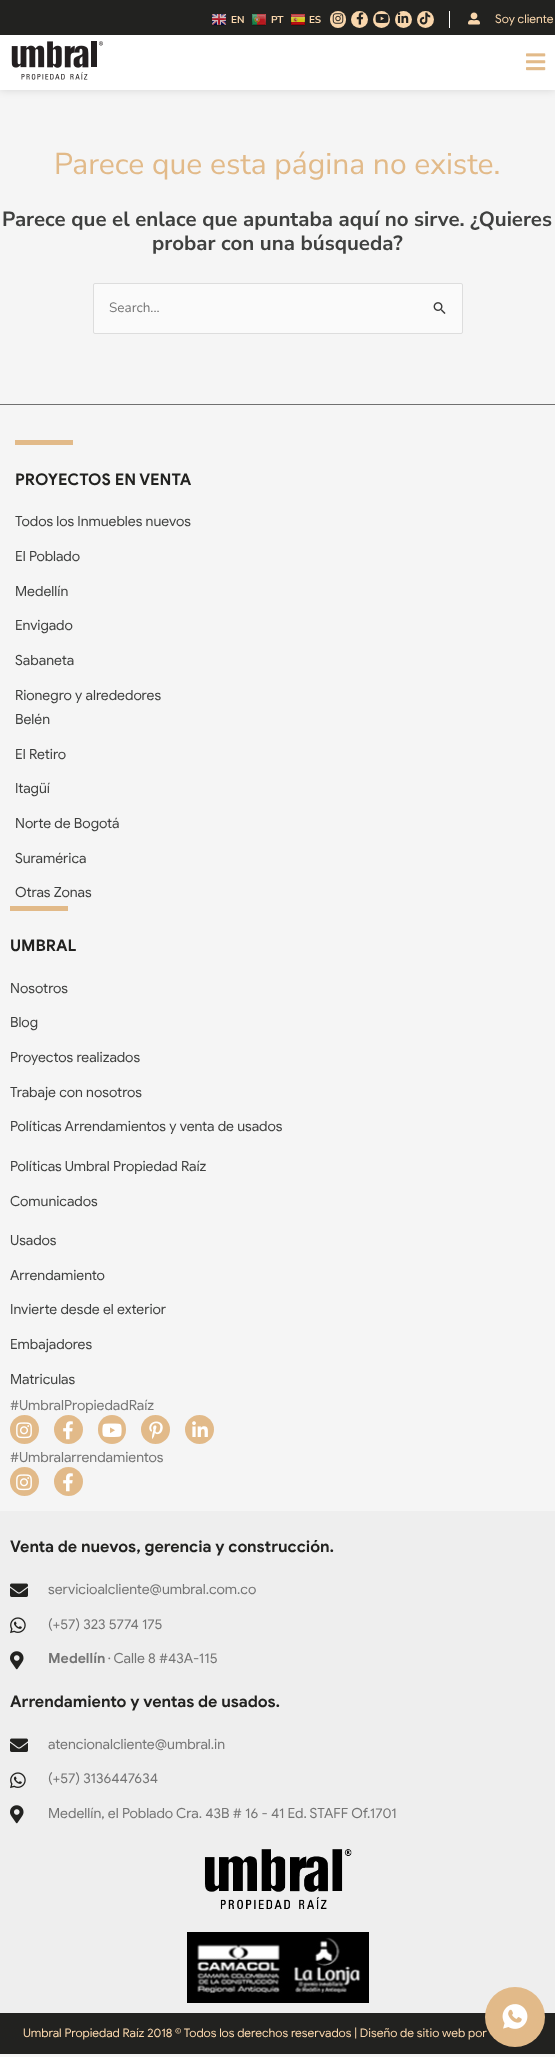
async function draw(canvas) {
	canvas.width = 555;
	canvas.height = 2057;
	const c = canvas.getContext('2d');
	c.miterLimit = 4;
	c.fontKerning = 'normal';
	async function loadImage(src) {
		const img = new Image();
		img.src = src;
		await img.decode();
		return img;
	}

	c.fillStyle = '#f5f5f5';
	c.fillRect(0, 0, 555, 2057);
	c.fillStyle = '#00000021';
	c.filter = 'blur(4px)';
	c.beginPath();
	c.rect(0, 35, 555, 55);
	c.fill();
	c.filter = 'none';
	c.fillStyle = '#222220';
	c.fillRect(0, 0, 555, 35);
	c.drawImage(await loadImage('img1.png'), 212, 14, 14, 12);
	c.font = 'bold 10px Nunito Sans';
	c.fillStyle = '#f9d6ac';
	c.fillText('EN', 231, 23);
	c.drawImage(await loadImage('img2.png'), 252, 14, 14, 12);
	c.fillText('PT', 271, 23);
	c.drawImage(await loadImage('img3.png'), 291, 14, 14, 12);
	c.fillText('ES', 309, 23);
	c.fillStyle = '#fff';
	c.fillRect(449, 11, 1, 17);
	c.fillStyle = '#f9d6ac';
	c.beginPath();
	c.roundRect(330, 11, 16, 17, 8);
	c.fill();
	c.drawImage(await loadImage('img4.png'), 332, 13, 12, 11);
	c.beginPath();
	c.arc(359.5, 19.5, 8.5, 0, 2 * Math.PI);
	c.fill();
	c.drawImage(await loadImage('img5.png'), 356, 12, 8, 13);
	c.beginPath();
	c.arc(381.5, 19.5, 8.5, 0, 2 * Math.PI);
	c.fill();
	c.drawImage(await loadImage('img6.png'), 375, 14, 14, 9);
	c.beginPath();
	c.arc(403.5, 19.5, 8.5, 0, 2 * Math.PI);
	c.fill();
	c.drawImage(await loadImage('img7.png'), 397, 12, 12, 11);
	c.beginPath();
	c.arc(425.5, 19.5, 8.5, 0, 2 * Math.PI);
	c.fill();
	c.drawImage(await loadImage('img8.png'), 419, 12, 12, 13);
	c.drawImage(await loadImage('img9.png'), 468, 12, 12, 13);
	c.font = '12px Google Sans';
	c.fillText('Soy cliente', 495, 23);
	c.fillStyle = '#fff';
	c.fillRect(0, 35, 555, 55);
	c.drawImage(await loadImage('img10.png'), 11, 41, 92, 39);
	c.drawImage(await loadImage('img11.png'), 526, 53, 20, 18);
	c.font = '30px Nunito Sans';
	c.fillStyle = '#e2ba89';
	c.fillText('Parece que esta página no existe.', 54, 174);
	c.font = 'bold 20.5px Nunito Sans';
	c.fillStyle = '#3f403f';
	c.fillText('Parece que el enlace que apuntaba aquí no sirve. ¿Quieres', 2, 226);
	c.fillText('probar con una búsqueda?', 152, 250);
	c.fillStyle = '#fafafa';
	c.beginPath();
	c.roundRect(93.5, 283.5, 369, 50, 1.5);
	c.fill();
	c.strokeStyle = '#ddd';
	c.stroke();
	c.font = '13.5px Nunito Sans';
	c.fillStyle = '#757575';
	c.fillText('Search...', 109, 312);
	c.drawImage(await loadImage('img12.png'), 433, 302, 13, 12);
	c.fillStyle = '#707070';
	c.fillRect(0, 404, 555, 1);
	c.fillStyle = '#e2ba89';
	c.fillRect(15, 440, 58, 5);
	c.font = 'bold 16px Google Sans';
	c.fillStyle = '#222220';
	c.fillText('PROYECTOS EN VENTA', 15, 485);
	c.font = '14px Google Sans';
	c.fillStyle = '#3f403f';
	for (const [text, x, y] of [
		['Todos los Inmuebles nuevos', 15, 526],
		['El Poblado', 15, 561],
		['Medellín', 15, 596],
		['Envigado', 15, 630],
		['Sabaneta', 15, 665],
		['Rionegro y alrededores', 15, 700],
		['Belén', 15, 724],
		['El Retiro', 15, 759],
		['Itagüí', 15, 793],
		['Norte de Bogotá', 15, 828],
		['Suramérica', 15, 863],
		['Otras Zonas', 15, 897],
	]) {
		c.fillText(text, x, y);
	}
	c.fillStyle = '#e2ba89';
	c.fillRect(10, 906, 58, 5);
	c.font = 'bold 16px Google Sans';
	c.fillStyle = '#222220';
	c.fillText('UMBRAL', 10, 951);
	c.font = '14px Google Sans';
	c.fillStyle = '#3f403f';
	for (const [text, x, y] of [
		['Nosotros', 10, 993],
		['Blog', 10, 1027],
		['Proyectos realizados', 10, 1062],
		['Trabaje con nosotros', 10, 1097],
		['Políticas Arrendamientos y venta de usados', 10, 1131],
		['Políticas Umbral Propiedad Raíz', 10, 1171],
		['Comunicados', 10, 1206],
		['Usados', 10, 1245],
		['Arrendamiento', 10, 1280],
		['Invierte desde el exterior', 10, 1314],
		['Embajadores', 10, 1349],
		['Matriculas', 10, 1384],
	]) {
		c.fillText(text, x, y);
	}
	c.fillStyle = '#757575';
	c.fillText('#UmbralPropiedadRaíz', 10, 1410);
	c.fillStyle = '#e2ba89';
	c.beginPath();
	c.arc(24.5, 1429.5, 14.5, 0, 2 * Math.PI);
	c.fill();
	c.drawImage(await loadImage('img13.png'), 16, 1422, 16, 17);
	c.beginPath();
	c.arc(68.5, 1429.5, 14.5, 0, 2 * Math.PI);
	c.fill();
	c.drawImage(await loadImage('img14.png'), 63, 1421, 10, 19);
	c.beginPath();
	c.roundRect(98, 1415, 28, 29, 14);
	c.fill();
	c.drawImage(await loadImage('img15.png'), 102, 1423, 20, 14);
	c.beginPath();
	c.arc(155.5, 1429.5, 14.5, 0, 2 * Math.PI);
	c.fill();
	c.drawImage(await loadImage('img16.png'), 149, 1421, 14, 18);
	c.beginPath();
	c.arc(199.5, 1429.5, 14.5, 0, 2 * Math.PI);
	c.fill();
	c.drawImage(await loadImage('img17.png'), 192, 1421, 16, 16);
	c.fillStyle = '#757575';
	c.fillText('#Umbralarrendamientos', 10, 1462);
	c.fillStyle = '#e2ba89';
	c.beginPath();
	c.arc(24.5, 1481.5, 14.5, 0, 2 * Math.PI);
	c.fill();
	c.drawImage(await loadImage('img13.png'), 16, 1474, 16, 17);
	c.beginPath();
	c.arc(68.5, 1481.5, 14.5, 0, 2 * Math.PI);
	c.fill();
	c.drawImage(await loadImage('img14.png'), 63, 1473, 10, 19);
	c.fillStyle = '#eee';
	c.fillRect(0, 1511, 555, 502);
	c.font = 'bold 16px Google Sans';
	c.fillStyle = '#222220';
	c.fillText('Venta de nuevos, gerencia y construcción.', 10, 1552);
	c.drawImage(await loadImage('img18.png'), 10, 1583, 18, 14);
	c.font = '14px Google Sans';
	c.fillStyle = '#757575';
	c.fillText('servicioalcliente@umbral.com.co', 48, 1594);
	c.drawImage(await loadImage('img19.png'), 10, 1617, 16, 17);
	c.fillText('(+57) 323 5774 175', 48, 1629);
	c.drawImage(await loadImage('img20.png'), 10, 1651, 14, 19);
	c.font = 'bold 14px Google Sans';
	c.fillText('Medellín', 48, 1663);
	c.font = '14px Google Sans';
	c.fillText('· Calle 8 #43A-115', 108, 1663);
	c.font = 'bold 16px Google Sans';
	c.fillStyle = '#222220';
	c.fillText('Arrendamiento y ventas de usados.', 10, 1707);
	c.drawImage(await loadImage('img18.png'), 10, 1738, 18, 14);
	c.font = '14px Google Sans';
	c.fillStyle = '#757575';
	c.fillText('atencionalcliente@umbral.in', 48, 1749);
	c.drawImage(await loadImage('img19.png'), 10, 1772, 16, 17);
	c.fillText('(+57) 3136447634', 48, 1783);
	c.drawImage(await loadImage('img20.png'), 10, 1805, 14, 19);
	c.fillText('Medellín, el Poblado Cra. 43B # 16 - 41 Ed. STAFF Of.1701', 48, 1818);
	c.drawImage(await loadImage('img21.png'), 204, 1849, 148, 61);
	c.drawImage(await loadImage('img22.png'), 187, 1932, 182, 71);
	c.fillStyle = '#222220';
	c.fillRect(0, 2013, 555, 41);
	c.font = '12px Google Sans';
	c.fillStyle = '#f9d6ac';
	c.fillText('Umbral Propiedad Raíz 2018 © Todos los derechos reservados | Diseño de sitio web por', 23, 2037);
	c.fillStyle = '#e2ba89';
	c.beginPath();
	c.arc(515, 2017, 30, 0, 2 * Math.PI);
	c.fill();
	c.drawImage(await loadImage('img23.png'), 502, 2004, 26, 25);
}

draw(document.querySelector('canvas'));
